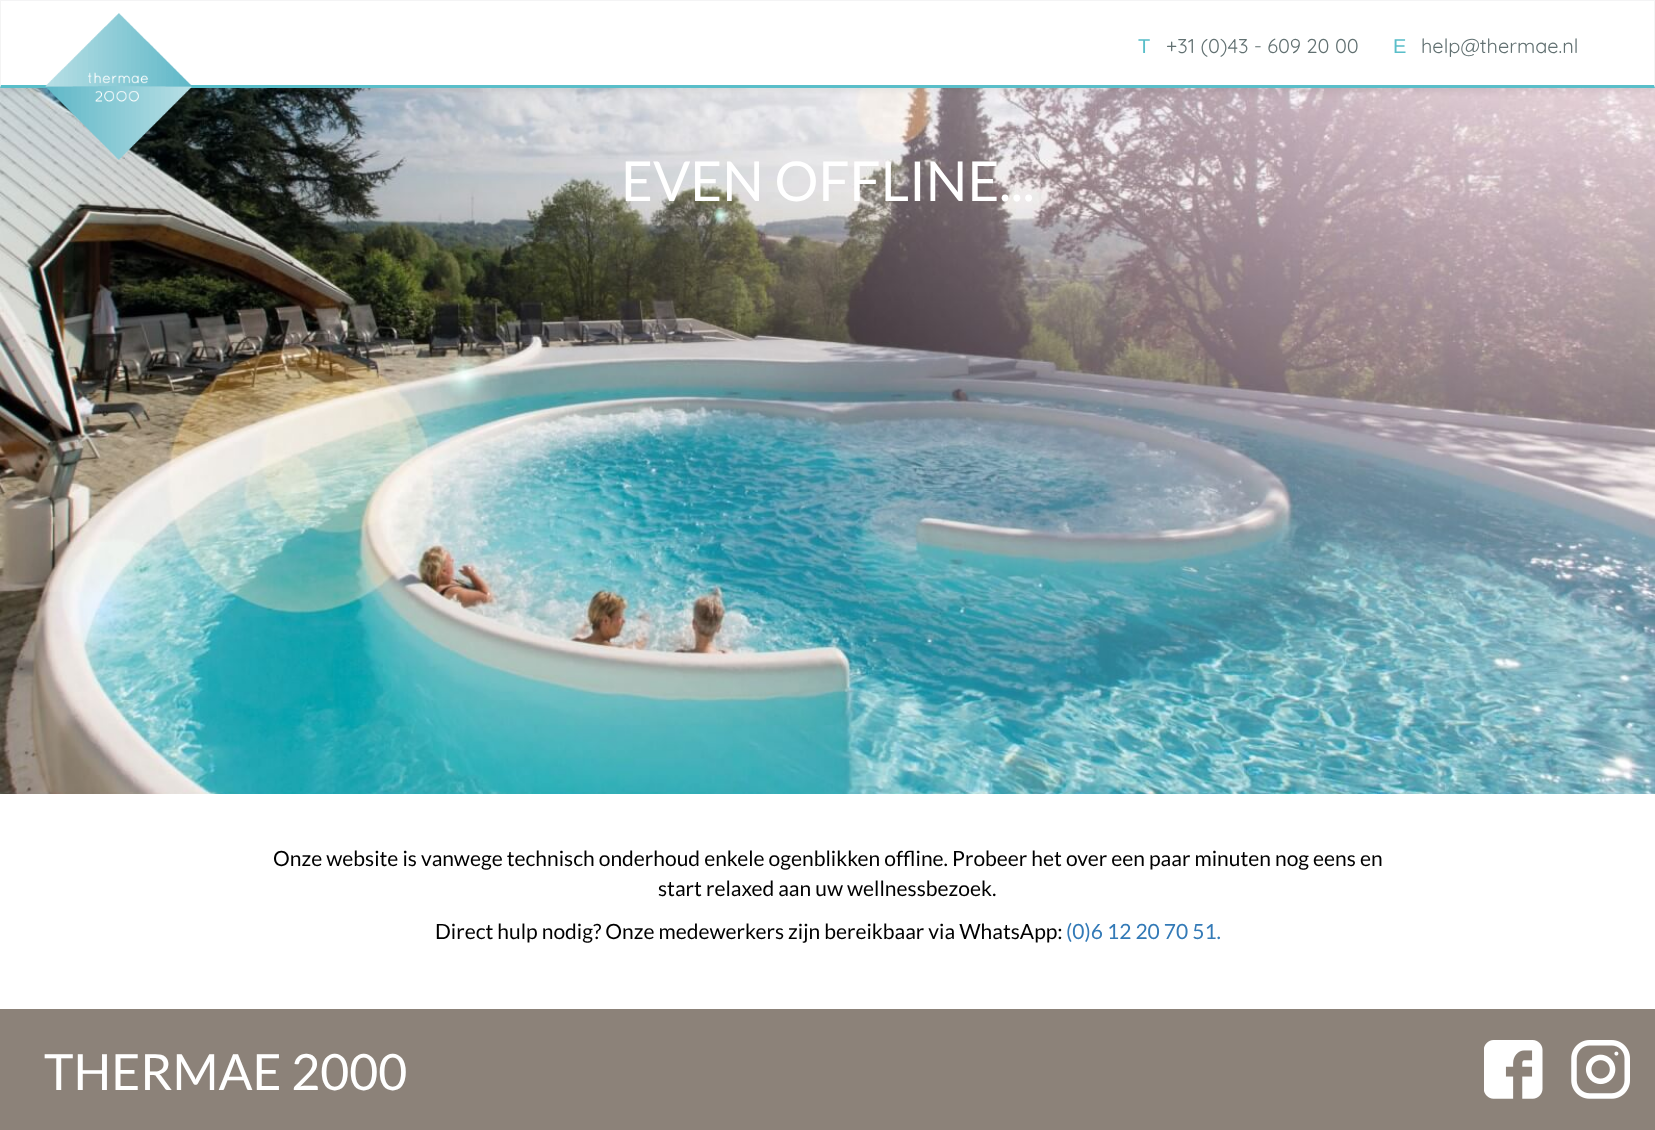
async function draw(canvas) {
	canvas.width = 1655;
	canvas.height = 1130;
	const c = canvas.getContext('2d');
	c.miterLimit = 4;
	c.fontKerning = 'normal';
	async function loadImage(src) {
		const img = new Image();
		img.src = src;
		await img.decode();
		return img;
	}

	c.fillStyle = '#fff';
	c.fillRect(0, 0, 1655, 1130);
	c.drawImage(await loadImage('img1.png'), 0, 88, 1655, 706);
	c.fillStyle = '#0000001a';
	c.filter = 'blur(5px)';
	c.beginPath();
	c.rect(0, 3, 1655, 87);
	c.fill();
	c.filter = 'none';
	c.fillStyle = '#fff';
	c.fillRect(0, 0, 1655, 88);
	c.fillStyle = '#f4f4f5';
	c.beginPath();
	c.moveTo(0, 0);
	c.lineTo(1655, 0);
	c.lineTo(1654, 1);
	c.lineTo(1, 1);
	c.closePath();
	c.fill();
	c.fillStyle = '#232b300d';
	c.beginPath();
	c.moveTo(1655, 0);
	c.lineTo(1655, 88);
	c.lineTo(1654, 85);
	c.lineTo(1654, 1);
	c.closePath();
	c.fill();
	c.fillStyle = '#59bec9';
	c.beginPath();
	c.moveTo(1655, 88);
	c.lineTo(0, 88);
	c.lineTo(1, 85);
	c.lineTo(1654, 85);
	c.closePath();
	c.fill();
	c.fillStyle = '#232b300d';
	c.beginPath();
	c.moveTo(0, 88);
	c.lineTo(0, 0);
	c.lineTo(1, 1);
	c.lineTo(1, 85);
	c.closePath();
	c.fill();
	c.drawImage(await loadImage('img2.png'), 45, 13, 147, 147);
	c.font = '20px Liberation Sans';
	c.fillStyle = '#59bec9';
	c.fillText('T', 1138, 53);
	c.font = '20px Quicksand';
	c.fillStyle = '#617071';
	c.fillText('+31 (0)43 - 609 20 00', 1166, 53);
	c.font = '20px Liberation Sans';
	c.fillStyle = '#59bec9';
	c.fillText('E', 1393, 53);
	c.font = '20px Quicksand';
	c.fillStyle = '#617071';
	c.fillText('help@thermae.nl', 1421, 53);
	c.font = '55px Lato';
	c.fillStyle = '#fff';
	c.fillText('EVEN OFFLINE...', 621, 201);
	c.font = '21px Lato';
	c.fillStyle = '#000';
	for (const [text, x, y] of [
		['Onze website is vanwege technisch onderhoud enkele ogenblikken offline. Probeer het over een paar minuten nog eens en', 273, 866],
		['start relaxed aan uw wellnessbezoek.', 658, 896],
		['Direct hulp nodig? Onze medewerkers zijn bereikbaar via WhatsApp:', 435, 939],
	]) {
		c.fillText(text, x, y);
	}
	c.fillStyle = '#337ab7';
	c.fillText('(0)6 12 20 70 51.', 1066, 939);
	c.fillStyle = '#8c8279';
	c.fillRect(0, 1009, 1655, 121);
	c.font = '50px Lato';
	c.fillStyle = '#fff';
	c.fillText('THERMAE 2000', 44, 1090);
	c.drawImage(await loadImage('img3.png'), 1484, 1040, 59, 59);
	c.drawImage(await loadImage('img4.png'), 1571, 1040, 59, 59);
}

draw(document.querySelector('canvas'));
